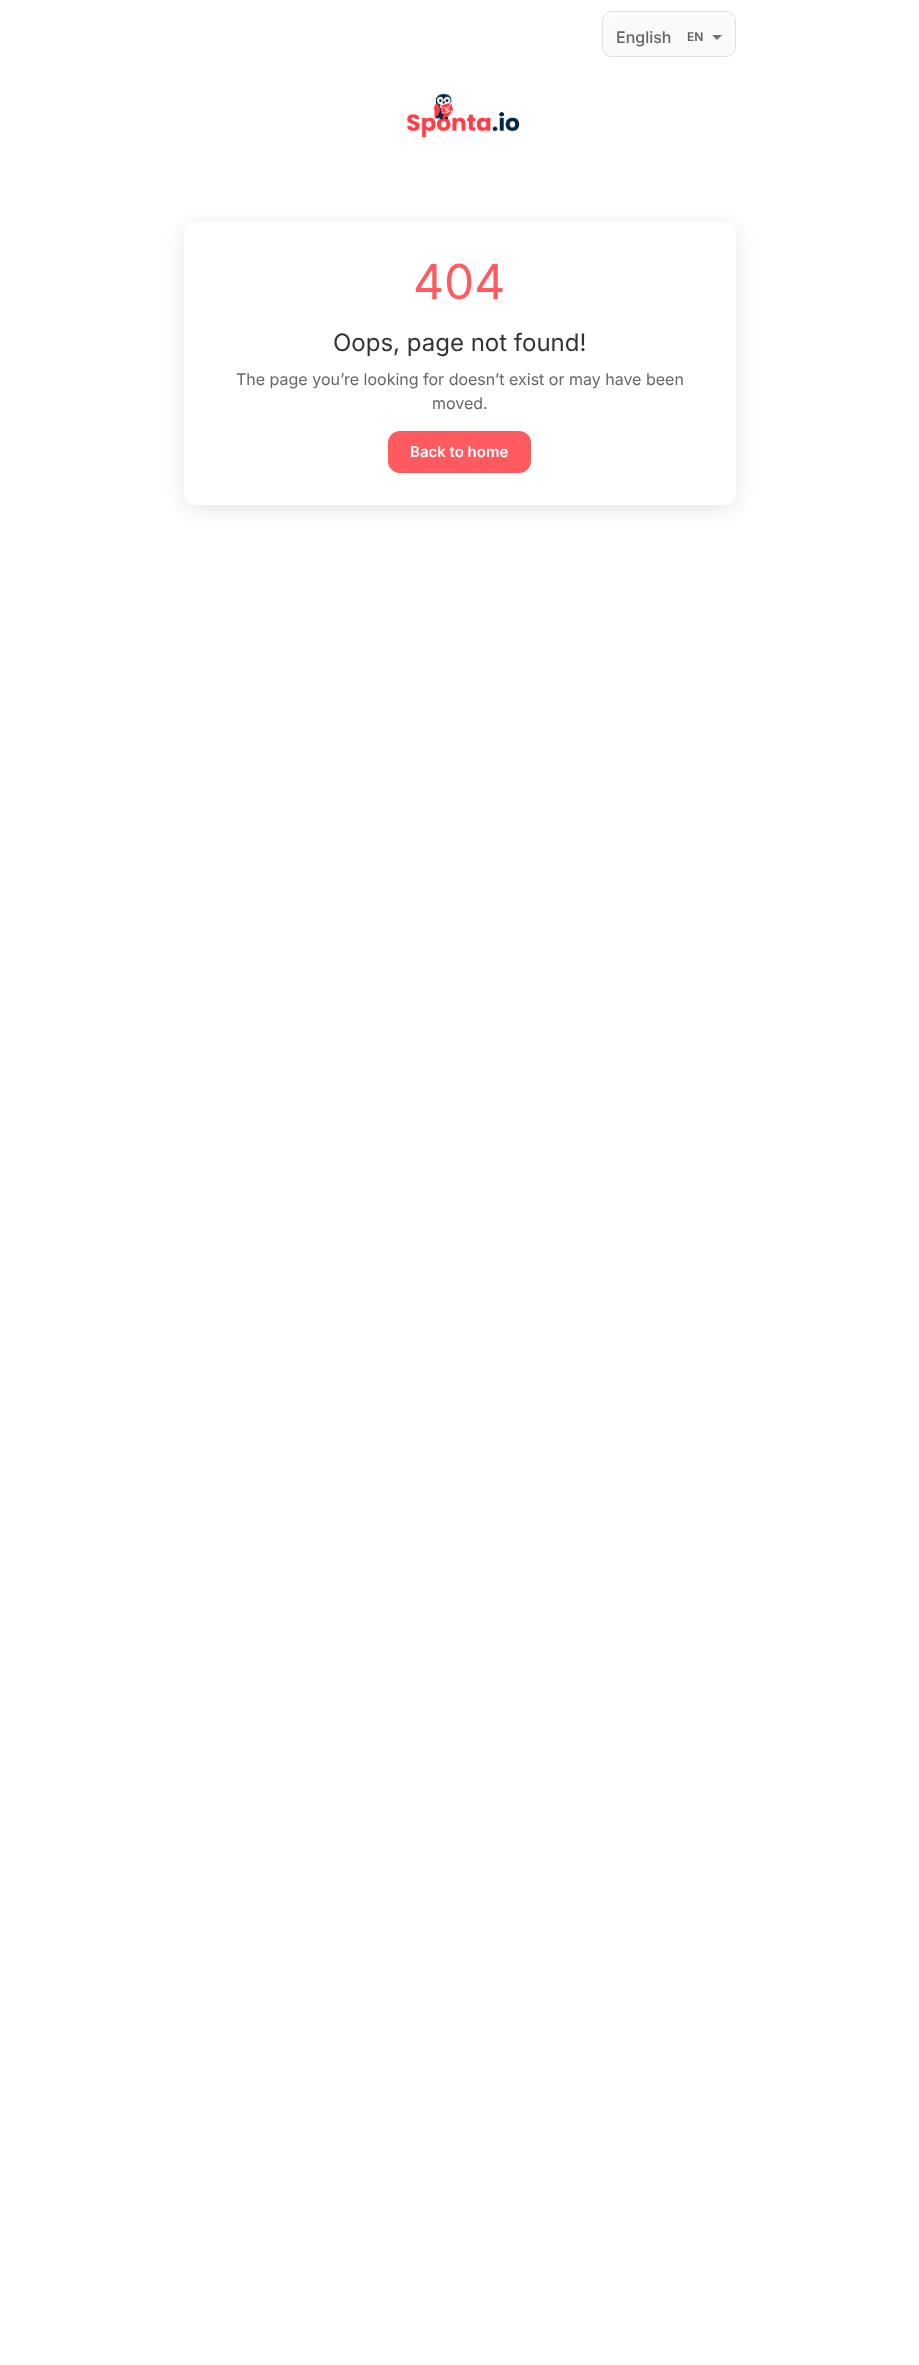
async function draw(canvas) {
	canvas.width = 919;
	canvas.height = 2365;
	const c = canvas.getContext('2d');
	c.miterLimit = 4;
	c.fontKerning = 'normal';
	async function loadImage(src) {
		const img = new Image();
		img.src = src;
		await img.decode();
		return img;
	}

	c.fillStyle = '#fff';
	c.fillRect(0, 0, 919, 2365);
	c.fillStyle = '#fafafa';
	c.beginPath();
	c.roundRect(602, 16, 134, 41, 10);
	c.fill();
	c.fillStyle = '#737373';
	c.beginPath();
	c.moveTo(712, 35);
	c.lineTo(717, 40);
	c.lineTo(722, 35);
	c.closePath();
	c.fill();
	c.beginPath();
	c.roundRect(602.5, 11.5, 133, 45, 9.5);
	c.strokeStyle = '#e0e0e0';
	c.stroke();
	c.font = '500 16px Inter';
	c.fillStyle = '#666';
	c.fillText('English', 616, 43);
	c.font = '600 12px Inter';
	c.fillStyle = '#5f6368';
	c.fillText('EN', 687, 41);
	c.drawImage(await loadImage('img1.png'), 407, 93, 113, 45);
	c.fillStyle = '#0000001a';
	c.filter = 'blur(10px)';
	c.beginPath();
	c.roundRect(184, 226, 552, 283, 12);
	c.fill();
	c.filter = 'none';
	c.fillStyle = '#fff';
	c.beginPath();
	c.roundRect(184, 222, 552, 283, 12);
	c.fill();
	c.font = '48px Inter';
	c.fillStyle = '#ff5a5f';
	c.fillText('404', 413, 299);
	c.font = '24px Inter';
	c.fillStyle = '#333';
	c.fillText('Oops, page not found!', 333, 351);
	c.font = '16px Inter';
	c.fillStyle = '#666';
	c.fillText('The page you’re looking for doesn’t exist or may have been', 236, 385);
	c.fillText('moved.', 432, 409);
	c.fillStyle = '#ff5a5f';
	c.beginPath();
	c.roundRect(388, 431, 143, 42, 12);
	c.fill();
	c.font = '600 15px Inter';
	c.fillStyle = '#fff';
	c.fillText('Back to home', 410, 457);
}

draw(document.querySelector('canvas'));
